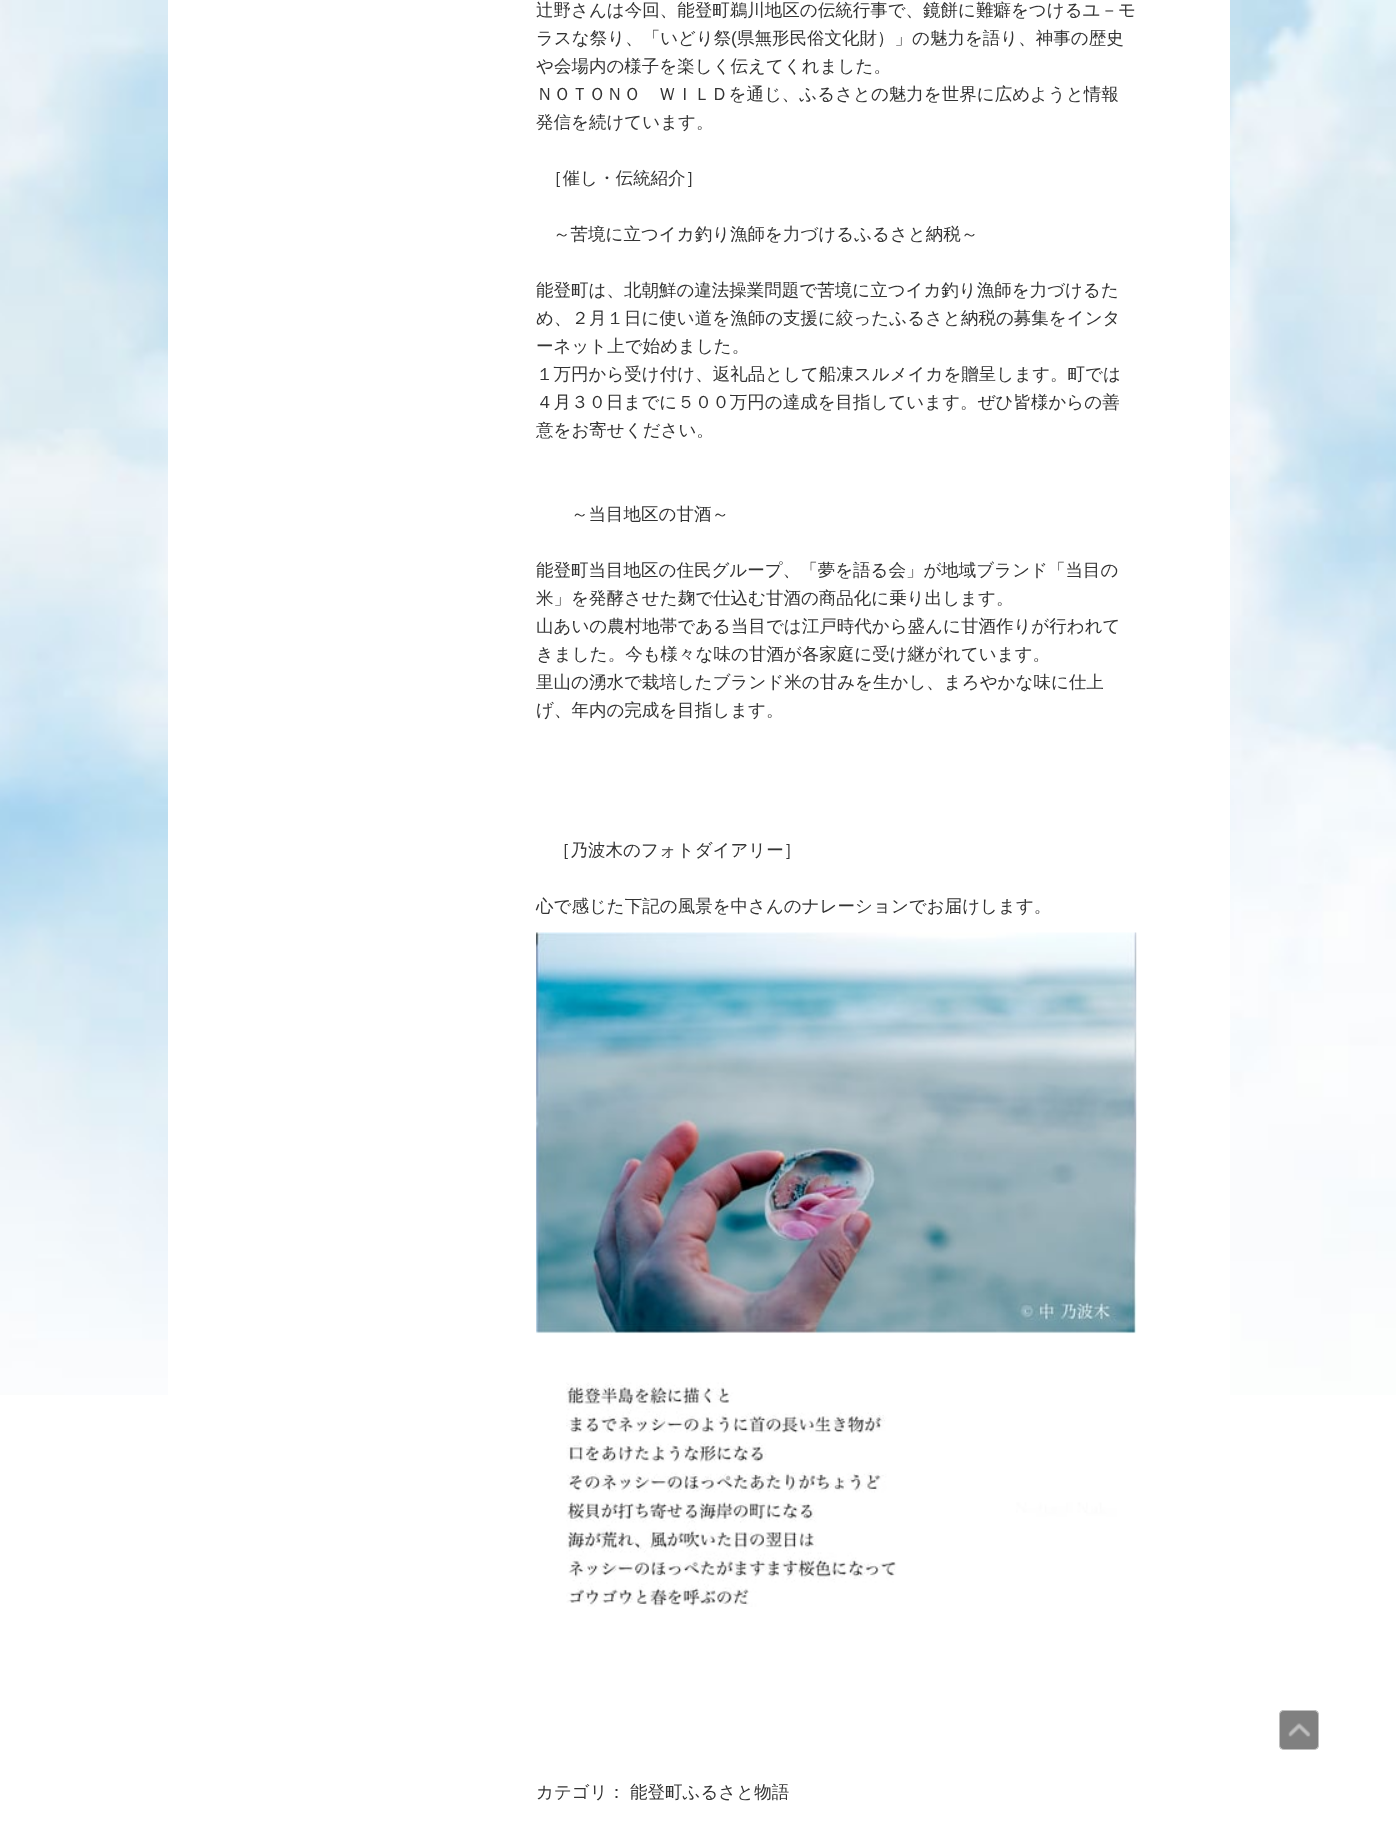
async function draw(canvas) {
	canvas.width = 1396;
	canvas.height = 1825;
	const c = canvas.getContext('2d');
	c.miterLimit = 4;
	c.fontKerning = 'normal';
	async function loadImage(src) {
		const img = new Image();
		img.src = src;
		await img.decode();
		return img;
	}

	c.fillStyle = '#fff';
	c.fillRect(0, 0, 1396, 1825);
	c.drawImage(await loadImage('img1.png'), 0, 0, 1396, 1395);
	c.fillRect(168, 0, 1062, 1395);
	c.font = '500 17.5px WenQuanYi Zen Hei';
	c.fillStyle = '#333';
	c.fillText('辻野さんは今回、能登町鵜川地区の伝統行事で、鏡餅に難癖をつけるユ－モ', 536, 16);
	c.fillText('ラスな祭り、「いどり祭', 536, 44);
	c.font = '17.5px Liberation Sans';
	c.fillText('(', 731, 44);
	c.font = '500 17.5px WenQuanYi Zen Hei';
	for (const [text, x, y] of [
		['県無形民俗文化財）」の魅力を語り、神事の歴史', 737, 44],
		['や会場内の様子を楽しく伝えてくれました。', 536, 72],
		['ＮＯＴＯＮＯ　ＷＩＬＤを通じ、ふるさとの魅力を世界に広めようと情報', 536, 100],
		['発信を続けています。', 536, 128],
		['［催し・伝統紹介］', 545, 184],
		['～苦境に立つイカ釣り漁師を力づけるふるさと納税～', 553, 240],
		['能登町は、北朝鮮の違法操業問題で苦境に立つイカ釣り漁師を力づけるた', 536, 296],
		['め、２月１日に使い道を漁師の支援に絞ったふるさと納税の募集をインタ', 536, 324],
		['ーネット上で始めました。', 536, 352],
		['１万円から受け付け、返礼品として船凍スルメイカを贈呈します。町では', 536, 380],
		['４月３０日までに５００万円の達成を目指しています。ぜひ皆様からの善', 536, 408],
		['意をお寄せください。', 536, 436],
		['～当目地区の甘酒～', 571, 520],
		['能登町当目地区の住民グループ、「夢を語る会」が地域ブランド「当目の', 536, 576],
		['米」を発酵させた麹で仕込む甘酒の商品化に乗り出します。', 536, 604],
		['山あいの農村地帯である当目では江戸時代から盛んに甘酒作りが行われて', 536, 632],
		['きました。今も様々な味の甘酒が各家庭に受け継がれています。', 536, 660],
		['里山の湧水で栽培したブランド米の甘みを生かし、まろやかな味に仕上', 536, 688],
		['げ、年内の完成を目指します。', 536, 716],
		['［乃波木のフォトダイアリー］', 553, 856],
		['心で感じた下記の風景を中さんのナレーションでお届けします。', 536, 912],
	]) {
		c.fillText(text, x, y);
	}
	c.drawImage(await loadImage('img2.png'), 536, 932, 601, 675);
	c.fillText('カテゴリ：', 536, 1798);
	c.fillText('能登町ふるさと物語', 630, 1798);
	c.fillStyle = '#808080';
	c.beginPath();
	c.roundRect(1279, 1710, 40, 40, 5);
	c.fill();
	c.beginPath();
	c.roundRect(1279.5, 1710.5, 39, 39, 4.5);
	c.strokeStyle = '#ffffff80';
	c.stroke();
	c.drawImage(await loadImage('img3.png'), 1288, 1723, 23, 14);
}

draw(document.querySelector('canvas'));
